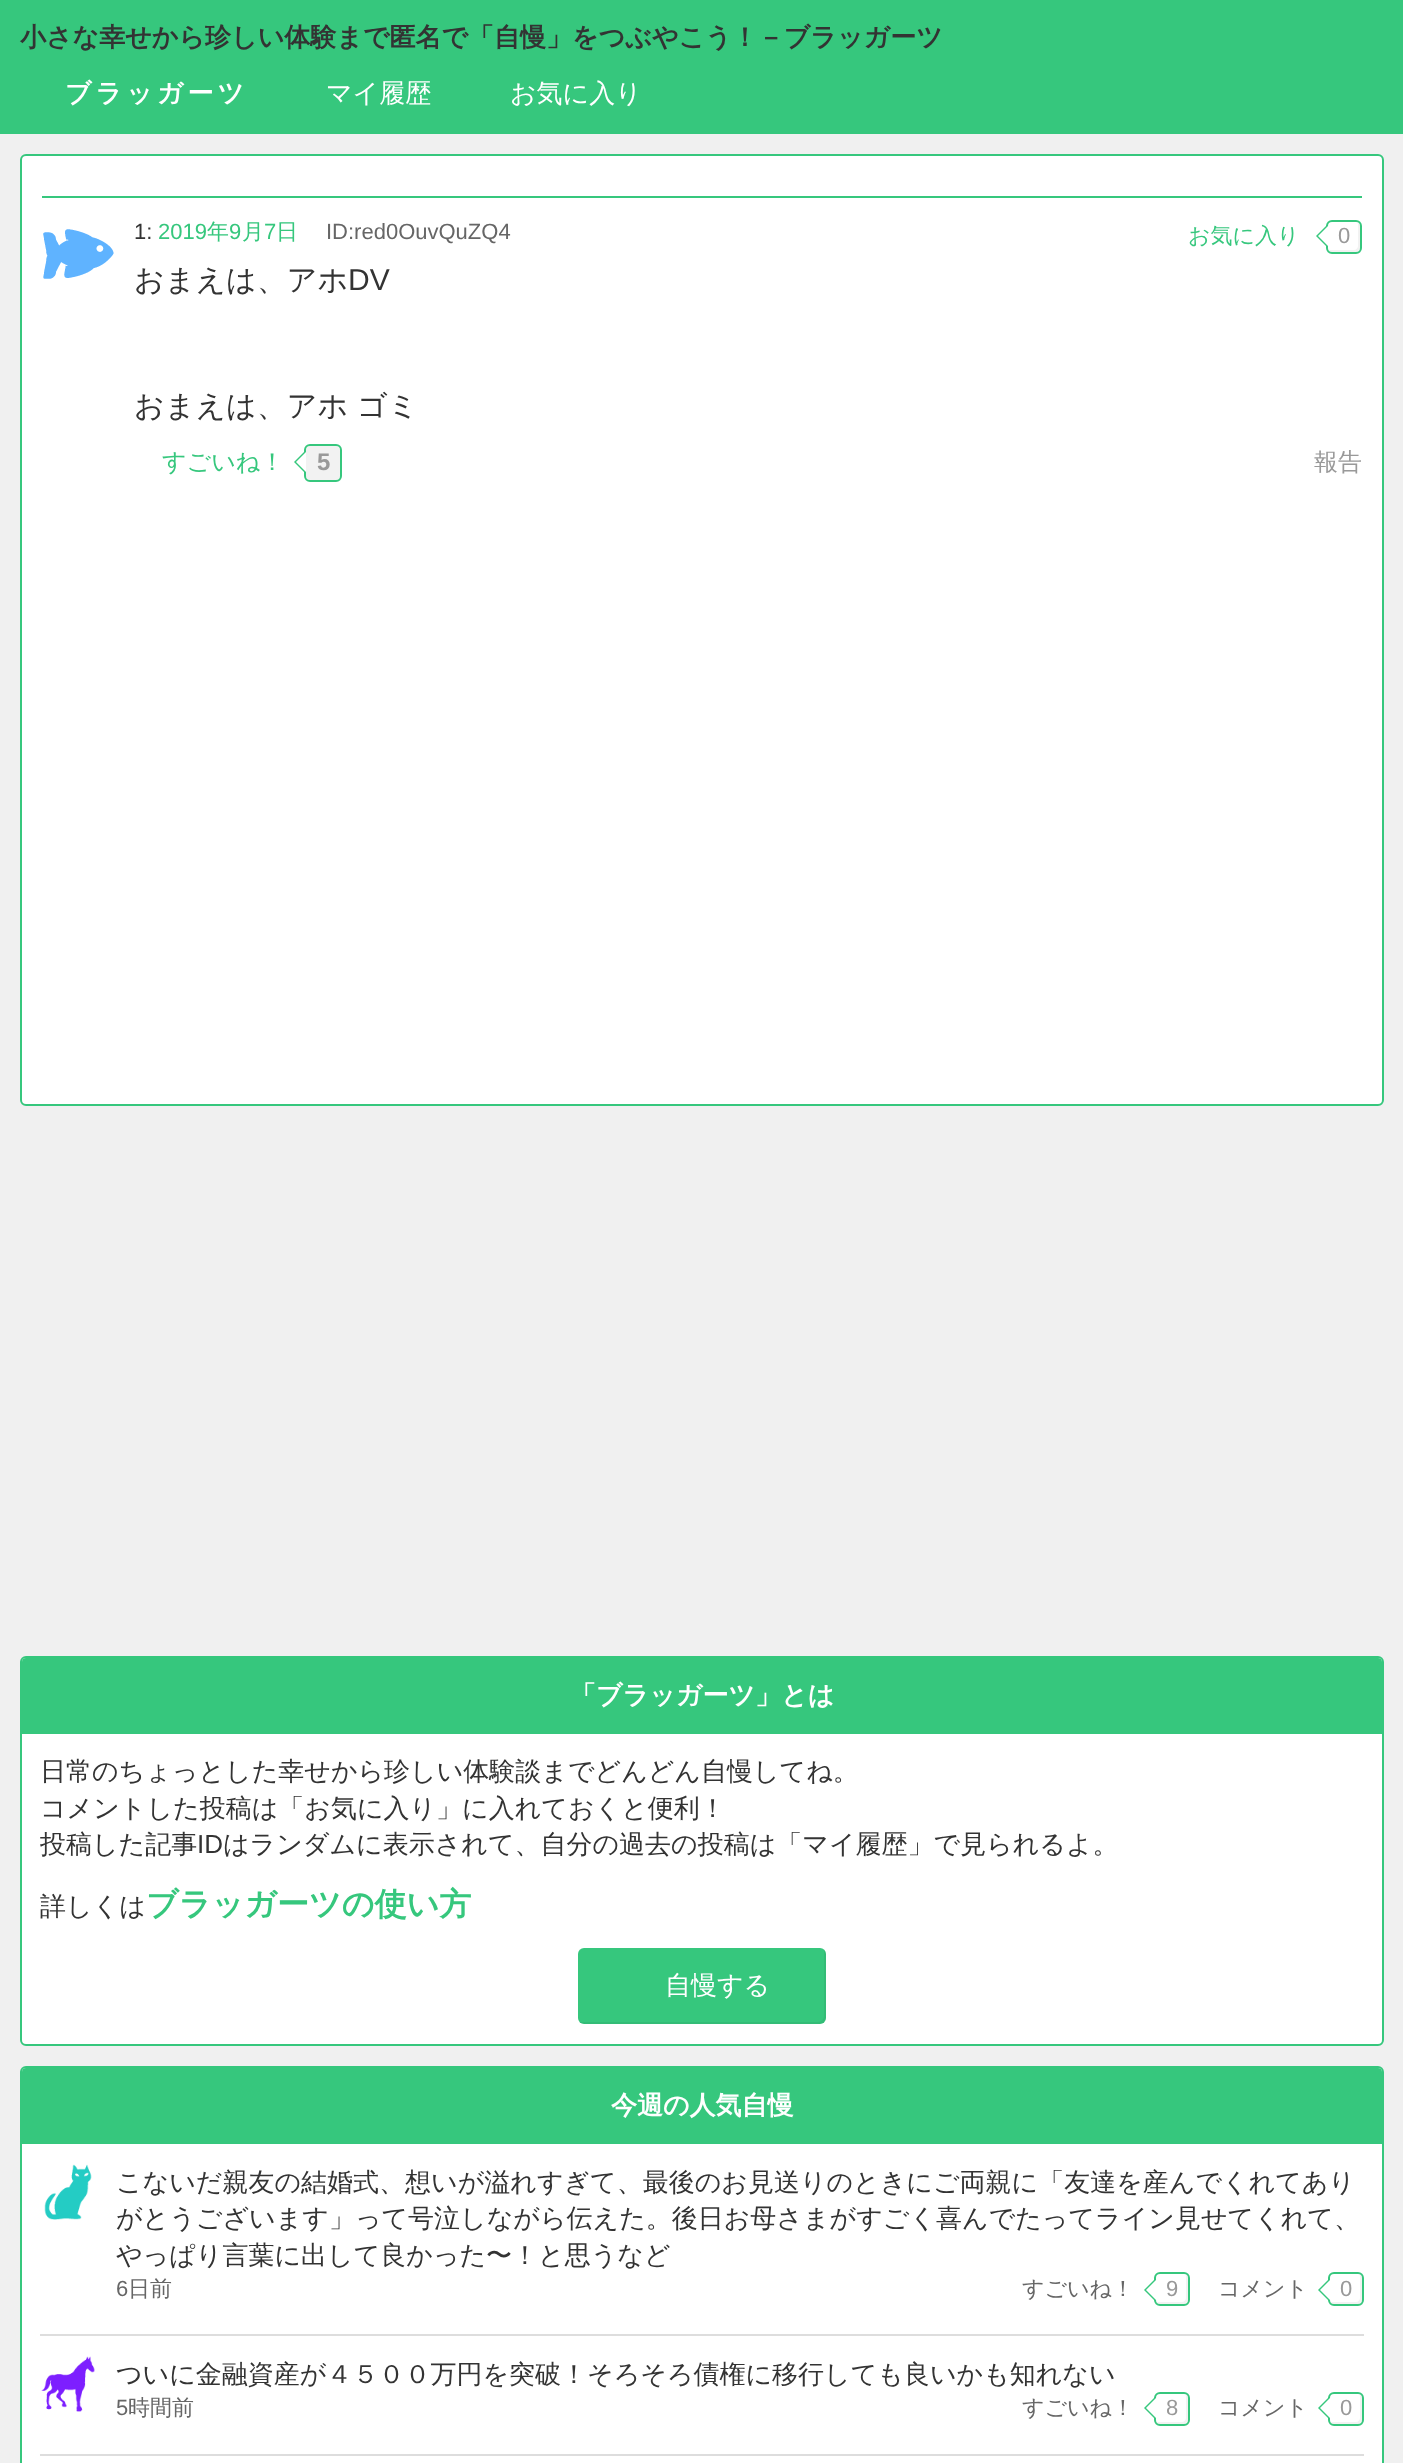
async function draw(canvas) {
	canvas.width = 1403;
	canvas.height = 2463;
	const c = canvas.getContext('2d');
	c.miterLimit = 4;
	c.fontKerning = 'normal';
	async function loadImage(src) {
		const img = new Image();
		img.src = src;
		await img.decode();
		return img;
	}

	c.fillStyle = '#f0f0f0';
	c.fillRect(0, 0, 1403, 2463);
	c.fillStyle = '#36c77d';
	c.fillRect(0, 0, 1403, 134);
	c.font = 'bold 26px WenQuanYi Zen Hei';
	c.fillStyle = '#333';
	c.fillText('小さな幸せから珍しい体験まで匿名で「自慢」をつぶやこう！－ブラッガーツ', 20, 46);
	c.letterSpacing = '4px';
	c.fillStyle = '#fff';
	c.fillText('ブラッガーツ', 65, 102);
	c.letterSpacing = '0px';
	c.font = '500 26px WenQuanYi Zen Hei';
	c.fillText('マイ履歴', 326, 102);
	c.fillText('お気に入り', 510, 102);
	c.beginPath();
	c.roundRect(21, 155, 1362, 950, 5);
	c.fill();
	c.strokeStyle = '#36c77d';
	c.lineWidth = 2;
	c.stroke();
	c.fillStyle = '#36c77d';
	c.fillRect(42, 196, 1320, 2);
	c.drawImage(await loadImage('img1.png'), 43, 229, 71, 50);
	c.font = '22px Liberation Sans';
	c.fillStyle = '#333';
	c.fillText('1:', 134, 239);
	c.fillStyle = '#36c77d';
	c.fillText('2019', 158, 239);
	c.font = '500 22px WenQuanYi Zen Hei';
	c.fillText('年', 207, 239);
	c.font = '22px Liberation Sans';
	c.fillText('9', 229, 239);
	c.font = '500 22px WenQuanYi Zen Hei';
	c.fillText('月', 242, 239);
	c.font = '22px Liberation Sans';
	c.fillText('7', 264, 239);
	c.font = '500 22px WenQuanYi Zen Hei';
	c.fillText('日', 276, 239);
	c.font = '22px Liberation Sans';
	c.fillStyle = '#666';
	c.fillText('ID:red0OuvQuZQ4', 326, 239);
	c.font = '500 22px WenQuanYi Zen Hei';
	c.fillStyle = '#36c77d';
	c.fillText('お気に入り', 1188, 243);
	c.fillStyle = '#f2f2f2';
	c.beginPath();
	c.moveTo(1328.5, 249.5);
	c.lineTo(1330, 250);
	c.lineTo(1354, 250);
	c.bezierCurveTo(1356, 250, 1358, 248, 1358, 246);
	c.lineTo(1358, 224);
	c.lineTo(1357.5, 222.5);
	c.bezierCurveTo(1359, 223, 1360, 224.5, 1360, 226);
	c.lineTo(1360, 248);
	c.bezierCurveTo(1360, 250, 1358, 252, 1356, 252);
	c.lineTo(1332, 252);
	c.bezierCurveTo(1330.5, 252, 1329, 251, 1328.5, 249.5);
	c.closePath();
	c.fill();
	c.beginPath();
	c.roundRect(1327, 221, 34, 32, 5);
	c.stroke();
	c.fillStyle = '#36c77d';
	c.beginPath();
	c.moveTo(1328, 224);
	c.lineTo(1328, 248);
	c.lineTo(1316, 236);
	c.closePath();
	c.fill();
	c.fillStyle = '#fff';
	c.beginPath();
	c.moveTo(1328, 226);
	c.lineTo(1328, 246);
	c.lineTo(1318, 236);
	c.closePath();
	c.fill();
	c.font = '22px Liberation Sans';
	c.fillStyle = '#999';
	c.fillText('0', 1338, 243);
	c.font = '500 30px WenQuanYi Zen Hei';
	c.fillStyle = '#333';
	c.fillText('おまえは、アホ', 134, 290);
	c.font = '30px Liberation Sans';
	c.fillText('DV', 348, 290);
	c.font = '500 30px WenQuanYi Zen Hei';
	c.fillText('おまえは、アホ', 134, 416);
	c.fillText('ゴミ', 357, 416);
	c.font = '500 24px WenQuanYi Zen Hei';
	c.fillStyle = '#36c77d';
	c.fillText('すごいね！', 162, 470);
	c.fillStyle = '#f2f2f2';
	c.beginPath();
	c.moveTo(310, 446);
	c.bezierCurveTo(305.5, 446, 306, 451.5, 306, 454.5);
	c.lineTo(306, 471.5);
	c.bezierCurveTo(306, 479, 305.5, 480, 314.5, 480);
	c.lineTo(331.5, 480);
	c.bezierCurveTo(340, 480, 340, 480, 340, 471.5);
	c.lineTo(340, 454.5);
	c.bezierCurveTo(340, 451.5, 340.5, 446, 336, 446);
	c.closePath();
	c.fill();
	c.beginPath();
	c.roundRect(305, 445, 36, 36, 5);
	c.stroke();
	c.fillStyle = '#36c77d';
	c.beginPath();
	c.moveTo(306, 450);
	c.lineTo(306, 474);
	c.lineTo(294, 462);
	c.closePath();
	c.fill();
	c.fillStyle = '#fff';
	c.beginPath();
	c.moveTo(306, 452);
	c.lineTo(306, 472);
	c.lineTo(296, 462);
	c.closePath();
	c.fill();
	c.font = 'bold 24px Liberation Sans';
	c.fillStyle = '#999';
	c.fillText('5', 317, 470);
	c.font = '500 24px WenQuanYi Zen Hei';
	c.fillText('報告', 1314, 470);
	c.fillStyle = '#fff';
	c.beginPath();
	c.roundRect(21, 1657, 1362, 388, 5);
	c.fill();
	c.stroke();
	c.fillStyle = '#36c77d';
	c.beginPath();
	c.roundRect(22, 1658, 1360, 76, [4, 4, 0, 0]);
	c.fill();
	c.font = 'bold 26px WenQuanYi Zen Hei';
	c.fillStyle = '#fff';
	c.fillText('「ブラッガーツ」とは', 570, 1704);
	c.font = '500 26px WenQuanYi Zen Hei';
	c.fillStyle = '#333';
	for (const [text, x, y] of [
		['日常のちょっとした幸せから珍しい体験談までどんどん自慢してね。', 40, 1780],
		['コメントした投稿は「お気に入り」に入れておくと便利！', 40, 1817],
		['投稿した記事', 40, 1853],
	]) {
		c.fillText(text, x, y);
	}
	c.font = '26px Liberation Sans';
	c.fillText('ID', 197, 1853);
	c.font = '500 26px WenQuanYi Zen Hei';
	c.fillText('はランダムに表示されて、自分の過去の投稿は「マイ履歴」で見られるよ。', 223, 1853);
	c.fillText('詳しくは', 40, 1915);
	c.font = 'bold 32px WenQuanYi Zen Hei';
	c.fillStyle = '#36c77d';
	c.fillText('ブラッガーツの使い方', 146, 1915);
	c.beginPath();
	c.roundRect(578, 1948, 248, 76, 6);
	c.fill();
	c.fillStyle = '#0000000d';
	c.beginPath();
	c.moveTo(579, 2021);
	c.bezierCurveTo(580, 2022, 581, 2022, 582, 2022);
	c.lineTo(818, 2022);
	c.bezierCurveTo(821, 2022, 824, 2019, 824, 2016);
	c.lineTo(824, 1952);
	c.bezierCurveTo(824, 1951, 824, 1950, 823, 1949);
	c.bezierCurveTo(825, 1950, 826, 1952, 826, 1954);
	c.lineTo(826, 2018);
	c.bezierCurveTo(826, 2021, 823, 2024, 820, 2024);
	c.lineTo(584, 2024);
	c.bezierCurveTo(582, 2024, 580, 2023, 579, 2021);
	c.closePath();
	c.fill();
	c.font = '500 26px WenQuanYi Zen Hei';
	c.fillStyle = '#fff';
	c.fillText('自慢する', 665, 1994);
	c.beginPath();
	c.roundRect(21, 2067, 1362, 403, 5);
	c.fill();
	c.stroke();
	c.fillStyle = '#36c77d';
	c.beginPath();
	c.roundRect(22, 2068, 1360, 76, [4, 4, 0, 0]);
	c.fill();
	c.font = 'bold 26px WenQuanYi Zen Hei';
	c.fillStyle = '#fff';
	c.fillText('今週の人気自慢', 611, 2114);
	c.drawImage(await loadImage('img2.png'), 44, 2164, 48, 56);
	c.font = '500 26px WenQuanYi Zen Hei';
	c.fillStyle = '#333';
	for (const [text, x, y] of [
		['こないだ親友の結婚式、想いが溢れすぎて、最後のお見送りのときにご両親に「友達を産んでくれてあり', 116, 2191],
		['がとうございます」って号泣しながら伝えた。後日お母さまがすごく喜んでたってライン見せてくれて、', 116, 2227],
		['やっぱり言葉に出して良かった〜！と思うなど', 116, 2264],
	]) {
		c.fillText(text, x, y);
	}
	c.font = '22px Liberation Sans';
	c.fillStyle = '#666';
	c.fillText('6', 116, 2296);
	c.font = '500 22px WenQuanYi Zen Hei';
	c.fillText('日前', 128, 2296);
	c.fillText('すごいね！', 1022, 2296);
	c.fillStyle = '#f2f2f2';
	c.beginPath();
	c.moveTo(1156.5, 2301.5);
	c.lineTo(1158, 2302);
	c.lineTo(1182, 2302);
	c.bezierCurveTo(1184, 2302, 1186, 2300, 1186, 2298);
	c.lineTo(1186, 2276);
	c.lineTo(1185.5, 2274.5);
	c.bezierCurveTo(1187, 2275, 1188, 2276.5, 1188, 2278);
	c.lineTo(1188, 2300);
	c.bezierCurveTo(1188, 2302, 1186, 2304, 1184, 2304);
	c.lineTo(1160, 2304);
	c.bezierCurveTo(1158.5, 2304, 1157, 2303, 1156.5, 2301.5);
	c.closePath();
	c.fill();
	c.beginPath();
	c.roundRect(1155, 2273, 34, 32, 5);
	c.stroke();
	c.fillStyle = '#36c77d';
	c.beginPath();
	c.moveTo(1156, 2278);
	c.lineTo(1156, 2302);
	c.lineTo(1144, 2290);
	c.closePath();
	c.fill();
	c.fillStyle = '#fff';
	c.beginPath();
	c.moveTo(1156, 2280);
	c.lineTo(1156, 2300);
	c.lineTo(1146, 2290);
	c.closePath();
	c.fill();
	c.font = '22px Liberation Sans';
	c.fillStyle = '#999';
	c.fillText('9', 1166, 2296);
	c.font = '500 22px WenQuanYi Zen Hei';
	c.fillStyle = '#666';
	c.fillText('コメント', 1218, 2296);
	c.fillStyle = '#f2f2f2';
	c.beginPath();
	c.moveTo(1330.5, 2301.5);
	c.lineTo(1332, 2302);
	c.lineTo(1356, 2302);
	c.bezierCurveTo(1358, 2302, 1360, 2300, 1360, 2298);
	c.lineTo(1360, 2276);
	c.lineTo(1359.5, 2274.5);
	c.bezierCurveTo(1361, 2275, 1362, 2276.5, 1362, 2278);
	c.lineTo(1362, 2300);
	c.bezierCurveTo(1362, 2302, 1360, 2304, 1358, 2304);
	c.lineTo(1334, 2304);
	c.bezierCurveTo(1332.5, 2304, 1331, 2303, 1330.5, 2301.5);
	c.closePath();
	c.fill();
	c.beginPath();
	c.roundRect(1329, 2273, 34, 32, 5);
	c.stroke();
	c.fillStyle = '#36c77d';
	c.beginPath();
	c.moveTo(1330, 2278);
	c.lineTo(1330, 2302);
	c.lineTo(1318, 2290);
	c.closePath();
	c.fill();
	c.fillStyle = '#fff';
	c.beginPath();
	c.moveTo(1330, 2280);
	c.lineTo(1330, 2300);
	c.lineTo(1320, 2290);
	c.closePath();
	c.fill();
	c.font = '22px Liberation Sans';
	c.fillStyle = '#999';
	c.fillText('0', 1340, 2296);
	c.fillStyle = '#ddd';
	c.fillRect(40, 2334, 1324, 2);
	c.drawImage(await loadImage('img3.png'), 41, 2356, 54, 56);
	c.font = '500 26px WenQuanYi Zen Hei';
	c.fillStyle = '#333';
	c.fillText('ついに金融資産が４５００万円を突破！そろそろ債権に移行しても良いかも知れない', 116, 2383);
	c.font = '22px Liberation Sans';
	c.fillStyle = '#666';
	c.fillText('5', 116, 2415);
	c.font = '500 22px WenQuanYi Zen Hei';
	c.fillText('時間前', 128, 2415);
	c.fillText('すごいね！', 1022, 2415);
	c.fillStyle = '#f2f2f2';
	c.beginPath();
	c.moveTo(1156.5, 2421.5);
	c.lineTo(1158, 2422);
	c.lineTo(1182, 2422);
	c.bezierCurveTo(1184, 2422, 1186, 2420, 1186, 2418);
	c.lineTo(1186, 2396);
	c.lineTo(1185.5, 2394.5);
	c.bezierCurveTo(1187, 2395, 1188, 2396.5, 1188, 2398);
	c.lineTo(1188, 2420);
	c.bezierCurveTo(1188, 2422, 1186, 2424, 1184, 2424);
	c.lineTo(1160, 2424);
	c.bezierCurveTo(1158.5, 2424, 1157, 2423, 1156.5, 2421.5);
	c.closePath();
	c.fill();
	c.beginPath();
	c.roundRect(1155, 2393, 34, 32, 5);
	c.stroke();
	c.fillStyle = '#36c77d';
	c.beginPath();
	c.moveTo(1156, 2396);
	c.lineTo(1156, 2420);
	c.lineTo(1144, 2408);
	c.closePath();
	c.fill();
	c.fillStyle = '#fff';
	c.beginPath();
	c.moveTo(1156, 2398);
	c.lineTo(1156, 2418);
	c.lineTo(1146, 2408);
	c.closePath();
	c.fill();
	c.font = '22px Liberation Sans';
	c.fillStyle = '#999';
	c.fillText('8', 1166, 2415);
	c.font = '500 22px WenQuanYi Zen Hei';
	c.fillStyle = '#666';
	c.fillText('コメント', 1218, 2415);
	c.fillStyle = '#f2f2f2';
	c.beginPath();
	c.moveTo(1330.5, 2421.5);
	c.lineTo(1332, 2422);
	c.lineTo(1356, 2422);
	c.bezierCurveTo(1358, 2422, 1360, 2420, 1360, 2418);
	c.lineTo(1360, 2396);
	c.lineTo(1359.5, 2394.5);
	c.bezierCurveTo(1361, 2395, 1362, 2396.5, 1362, 2398);
	c.lineTo(1362, 2420);
	c.bezierCurveTo(1362, 2422, 1360, 2424, 1358, 2424);
	c.lineTo(1334, 2424);
	c.bezierCurveTo(1332.5, 2424, 1331, 2423, 1330.5, 2421.5);
	c.closePath();
	c.fill();
	c.beginPath();
	c.roundRect(1329, 2393, 34, 32, 5);
	c.stroke();
	c.fillStyle = '#36c77d';
	c.beginPath();
	c.moveTo(1330, 2396);
	c.lineTo(1330, 2420);
	c.lineTo(1318, 2408);
	c.closePath();
	c.fill();
	c.fillStyle = '#fff';
	c.beginPath();
	c.moveTo(1330, 2398);
	c.lineTo(1330, 2418);
	c.lineTo(1320, 2408);
	c.closePath();
	c.fill();
	c.font = '22px Liberation Sans';
	c.fillStyle = '#999';
	c.fillText('0', 1340, 2415);
	c.fillStyle = '#ddd';
	c.fillRect(40, 2454, 1324, 2);
}

draw(document.querySelector('canvas'));
